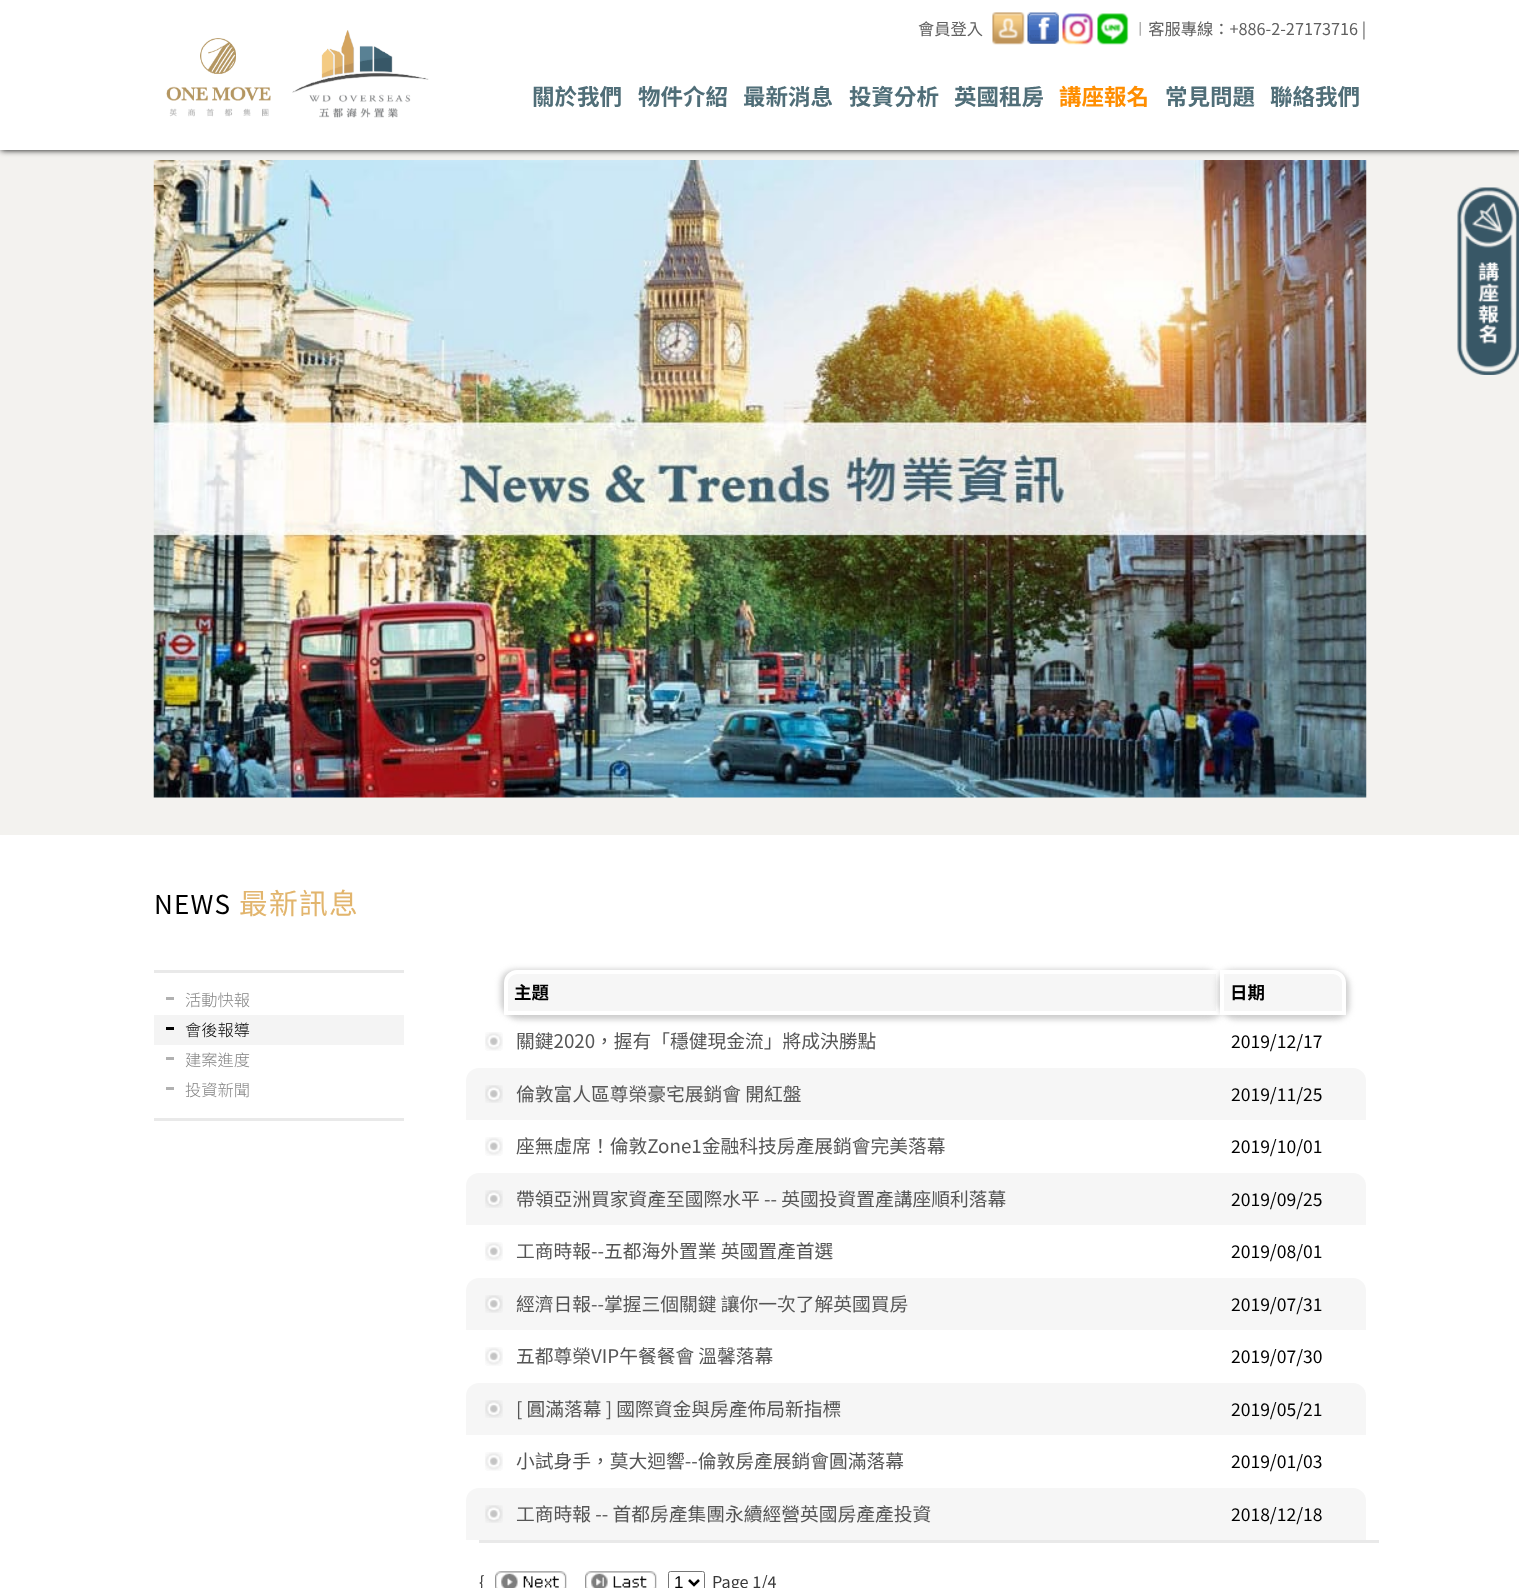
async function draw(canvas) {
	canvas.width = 1519;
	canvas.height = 1588;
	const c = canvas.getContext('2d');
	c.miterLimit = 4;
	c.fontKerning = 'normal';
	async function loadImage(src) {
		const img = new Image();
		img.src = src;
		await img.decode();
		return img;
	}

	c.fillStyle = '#fff';
	c.fillRect(0, 0, 1519, 1588);
	c.fillStyle = '#f3f2ef';
	c.fillRect(0, 150, 1519, 685);
	c.fillStyle = '#000';
	c.filter = 'blur(3px)';
	c.beginPath();
	c.rect(1, 0, 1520, 150);
	c.fill();
	c.filter = 'none';
	c.fillStyle = '#fff';
	c.fillRect(0, 0, 1519, 150);
	c.drawImage(await loadImage('img1.png'), 166, 30, 263, 88);
	c.drawImage(await loadImage('img2.png'), 992, 12, 33, 33);
	c.font = '16.25px Noto Sans CJK TC';
	c.fillStyle = '#606060';
	c.fillText('會員登入', 918, 35);
	c.drawImage(await loadImage('img3.png'), 1027, 12, 32, 32);
	c.drawImage(await loadImage('img4.png'), 1062, 13, 32, 32);
	c.drawImage(await loadImage('img5.png'), 1097, 13, 32, 32);
	c.fillText('︱客服專線：+886-2-27173716 |', 1132, 35);
	c.font = 'bold 22.5px Noto Sans CJK TC';
	c.fillStyle = '#506e78';
	for (const [text, x, y] of [
		['關於我們', 532, 105],
		['物件介紹', 638, 105],
		['最新消息', 743, 105],
		['投資分析', 849, 105],
		['英國租房', 954, 105],
	]) {
		c.fillText(text, x, y);
	}
	c.fillStyle = '#ff8e01';
	c.fillText('講座報名', 1059, 105);
	c.fillStyle = '#506e78';
	c.fillText('常見問題', 1165, 105);
	c.fillText('聯絡我們', 1270, 105);
	c.drawImage(await loadImage('img6.png'), 153, 160, 1214, 638);
	c.drawImage(await loadImage('img7.png'), 1457, 187, 62, 188);
	c.letterSpacing = '1.25px';
	c.font = '26px Noto Sans CJK TC';
	c.fillStyle = '#000';
	c.fillText('NEWS', 154, 914);
	c.font = '28.75px Noto Sans CJK TC';
	c.fillStyle = '#e2b56d';
	c.fillText('最新訊息', 239, 914);
	for (const [x, y, w, h, color] of [
		[154, 970, 250, 3, '#e9e9e9'],
		[154, 1118, 250, 3, '#e9e9e9'],
		[166, 997, 8, 3, '#b1b1b1'],
	]) {
		c.fillStyle = color;
		c.fillRect(x, y, w, h);
	}
	c.letterSpacing = '0px';
	c.font = '300 16.25px Noto Sans CJK TC';
	c.fillStyle = '#858585';
	c.fillText('活動快報', 185, 1006);
	c.fillStyle = '#f4f4f4';
	c.fillRect(154, 1015, 250, 30);
	c.fillStyle = '#000';
	c.fillRect(166, 1027, 8, 3);
	c.fillText('會後報導', 185, 1036);
	c.fillStyle = '#b1b1b1';
	c.fillRect(166, 1057, 8, 3);
	c.fillStyle = '#858585';
	c.fillText('建案進度', 185, 1066);
	c.fillStyle = '#b1b1b1';
	c.fillRect(166, 1087, 8, 3);
	c.fillStyle = '#858585';
	c.fillText('投資新聞', 185, 1096);
	c.fillStyle = '#ccc';
	c.filter = 'blur(3px)';
	c.beginPath();
	c.roundRect(501, 970, 717, 45, 13);
	c.fill();
	c.filter = 'none';
	c.filter = 'blur(3px)';
	c.beginPath();
	c.roundRect(506, 974, 717, 45, 13);
	c.fill();
	c.filter = 'none';
	c.fillStyle = '#f6f6f6';
	c.beginPath();
	c.roundRect(506, 972, 712, 41, [11, 0, 0, 0]);
	c.fill();
	c.strokeStyle = '#fff';
	c.lineWidth = 4;
	c.stroke();
	c.font = 'bold 17.5px Noto Sans CJK TC';
	c.fillStyle = '#000';
	c.fillText('主題', 514, 999);
	c.fillStyle = '#ccc';
	c.filter = 'blur(3px)';
	c.beginPath();
	c.roundRect(1218, 970, 126, 45, 13);
	c.fill();
	c.filter = 'none';
	c.filter = 'blur(3px)';
	c.beginPath();
	c.roundRect(1223, 974, 126, 45, 13);
	c.fill();
	c.filter = 'none';
	c.fillStyle = '#f6f6f6';
	c.beginPath();
	c.roundRect(1222, 972, 122, 41, [0, 11, 0, 0]);
	c.fill();
	c.stroke();
	c.fillStyle = '#000';
	c.fillText('日期', 1230, 999);
	c.drawImage(await loadImage('img8.png'), 485, 1032, 18, 19);
	c.font = '18.75px Noto Sans CJK TC';
	c.fillStyle = '#555';
	c.fillText('關鍵2020，握有「穩健現金流」將成決勝點', 516, 1048);
	c.font = '17.5px Noto Sans CJK TC';
	c.fillStyle = '#000';
	c.fillText('2019/12/17', 1231, 1048);
	c.fillStyle = '#f6f6f6';
	c.beginPath();
	c.roundRect(466, 1068, 765, 52, [13, 0, 0, 0]);
	c.fill();
	c.drawImage(await loadImage('img9.png'), 485, 1085, 18, 18);
	c.font = '18.75px Noto Sans CJK TC';
	c.fillStyle = '#555';
	c.fillText('倫敦富人區尊榮豪宅展銷會 開紅盤', 516, 1101);
	c.fillStyle = '#f6f6f6';
	c.beginPath();
	c.roundRect(1231, 1068, 135, 52, [0, 13, 0, 0]);
	c.fill();
	c.font = '17.5px Noto Sans CJK TC';
	c.fillStyle = '#000';
	c.fillText('2019/11/25', 1231, 1101);
	c.drawImage(await loadImage('img8.png'), 485, 1137, 18, 19);
	c.font = '18.75px Noto Sans CJK TC';
	c.fillStyle = '#555';
	c.fillText('座無虛席！倫敦Zone1金融科技房產展銷會完美落幕', 516, 1153);
	c.font = '17.5px Noto Sans CJK TC';
	c.fillStyle = '#000';
	c.fillText('2019/10/01', 1231, 1153);
	c.fillStyle = '#f6f6f6';
	c.beginPath();
	c.roundRect(466, 1173, 765, 52, [13, 0, 0, 0]);
	c.fill();
	c.drawImage(await loadImage('img9.png'), 485, 1190, 18, 18);
	c.font = '18.75px Noto Sans CJK TC';
	c.fillStyle = '#555';
	c.fillText('帶領亞洲買家資產至國際水平 -- 英國投資置產講座順利落幕', 516, 1206);
	c.fillStyle = '#f6f6f6';
	c.beginPath();
	c.roundRect(1231, 1173, 135, 52, [0, 13, 0, 0]);
	c.fill();
	c.font = '17.5px Noto Sans CJK TC';
	c.fillStyle = '#000';
	c.fillText('2019/09/25', 1231, 1206);
	c.drawImage(await loadImage('img8.png'), 485, 1242, 18, 19);
	c.font = '18.75px Noto Sans CJK TC';
	c.fillStyle = '#555';
	c.fillText('工商時報--五都海外置業 英國置產首選', 516, 1258);
	c.font = '17.5px Noto Sans CJK TC';
	c.fillStyle = '#000';
	c.fillText('2019/08/01', 1231, 1258);
	c.fillStyle = '#f6f6f6';
	c.beginPath();
	c.roundRect(466, 1278, 765, 52, [13, 0, 0, 0]);
	c.fill();
	c.drawImage(await loadImage('img9.png'), 485, 1295, 18, 18);
	c.font = '18.75px Noto Sans CJK TC';
	c.fillStyle = '#555';
	c.fillText('經濟日報--掌握三個關鍵 讓你一次了解英國買房', 516, 1311);
	c.fillStyle = '#f6f6f6';
	c.beginPath();
	c.roundRect(1231, 1278, 135, 52, [0, 13, 0, 0]);
	c.fill();
	c.font = '17.5px Noto Sans CJK TC';
	c.fillStyle = '#000';
	c.fillText('2019/07/31', 1231, 1311);
	c.drawImage(await loadImage('img8.png'), 485, 1347, 18, 19);
	c.font = '18.75px Noto Sans CJK TC';
	c.fillStyle = '#555';
	c.fillText('五都尊榮VIP午餐餐會 溫馨落幕', 516, 1363);
	c.font = '17.5px Noto Sans CJK TC';
	c.fillStyle = '#000';
	c.fillText('2019/07/30', 1231, 1363);
	c.fillStyle = '#f6f6f6';
	c.beginPath();
	c.roundRect(466, 1383, 765, 52, [13, 0, 0, 0]);
	c.fill();
	c.drawImage(await loadImage('img9.png'), 485, 1400, 18, 18);
	c.font = '18.75px Noto Sans CJK TC';
	c.fillStyle = '#555';
	c.fillText('[ 圓滿落幕 ] 國際資金與房產佈局新指標', 516, 1416);
	c.fillStyle = '#f6f6f6';
	c.beginPath();
	c.roundRect(1231, 1383, 135, 52, [0, 13, 0, 0]);
	c.fill();
	c.font = '17.5px Noto Sans CJK TC';
	c.fillStyle = '#000';
	c.fillText('2019/05/21', 1231, 1416);
	c.drawImage(await loadImage('img8.png'), 485, 1452, 18, 19);
	c.font = '18.75px Noto Sans CJK TC';
	c.fillStyle = '#555';
	c.fillText('小試身手，莫大迴響--倫敦房產展銷會圓滿落幕', 516, 1468);
	c.font = '17.5px Noto Sans CJK TC';
	c.fillStyle = '#000';
	c.fillText('2019/01/03', 1231, 1468);
	c.fillStyle = '#f6f6f6';
	c.beginPath();
	c.roundRect(466, 1488, 765, 52, [13, 0, 0, 0]);
	c.fill();
	c.drawImage(await loadImage('img9.png'), 485, 1505, 18, 18);
	c.font = '18.75px Noto Sans CJK TC';
	c.fillStyle = '#555';
	c.fillText('工商時報 -- 首都房產集團永續經營英國房產產投資', 516, 1521);
	c.fillStyle = '#f6f6f6';
	c.beginPath();
	c.roundRect(1231, 1488, 135, 52, [0, 13, 0, 0]);
	c.fill();
	c.font = '17.5px Noto Sans CJK TC';
	c.fillStyle = '#000';
	c.fillText('2018/12/18', 1231, 1521);
	c.fillStyle = '#e9e9e9';
	c.fillRect(479, 1540, 900, 3);
	c.font = '16.25px Noto Sans CJK TC';
	c.fillStyle = '#383838';
	c.fillText('{', 479, 1588);
	c.drawImage(await loadImage('img10.png'), 495, 1571, 72, 17);
	c.drawImage(await loadImage('img11.png'), 585, 1571, 72, 17);
	c.beginPath();
	c.roundRect(668.5, 1571.5, 36, 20, 2);
	c.strokeStyle = '#767676';
	c.lineWidth = 1;
	c.stroke();
	c.beginPath();
	c.moveTo(689, 1580);
	c.lineTo(694, 1585);
	c.lineTo(699, 1580);
	c.strokeStyle = '#000';
	c.lineWidth = 2.5;
	c.stroke();
	c.font = '17px Liberation Sans';
	c.fillStyle = '#000';
	c.fillText('1', 674, 1588);
	c.font = '16.25px Noto Sans CJK TC';
	c.fillStyle = '#383838';
	c.fillText('Page 1/4', 712, 1588);
}

draw(document.querySelector('canvas'));
